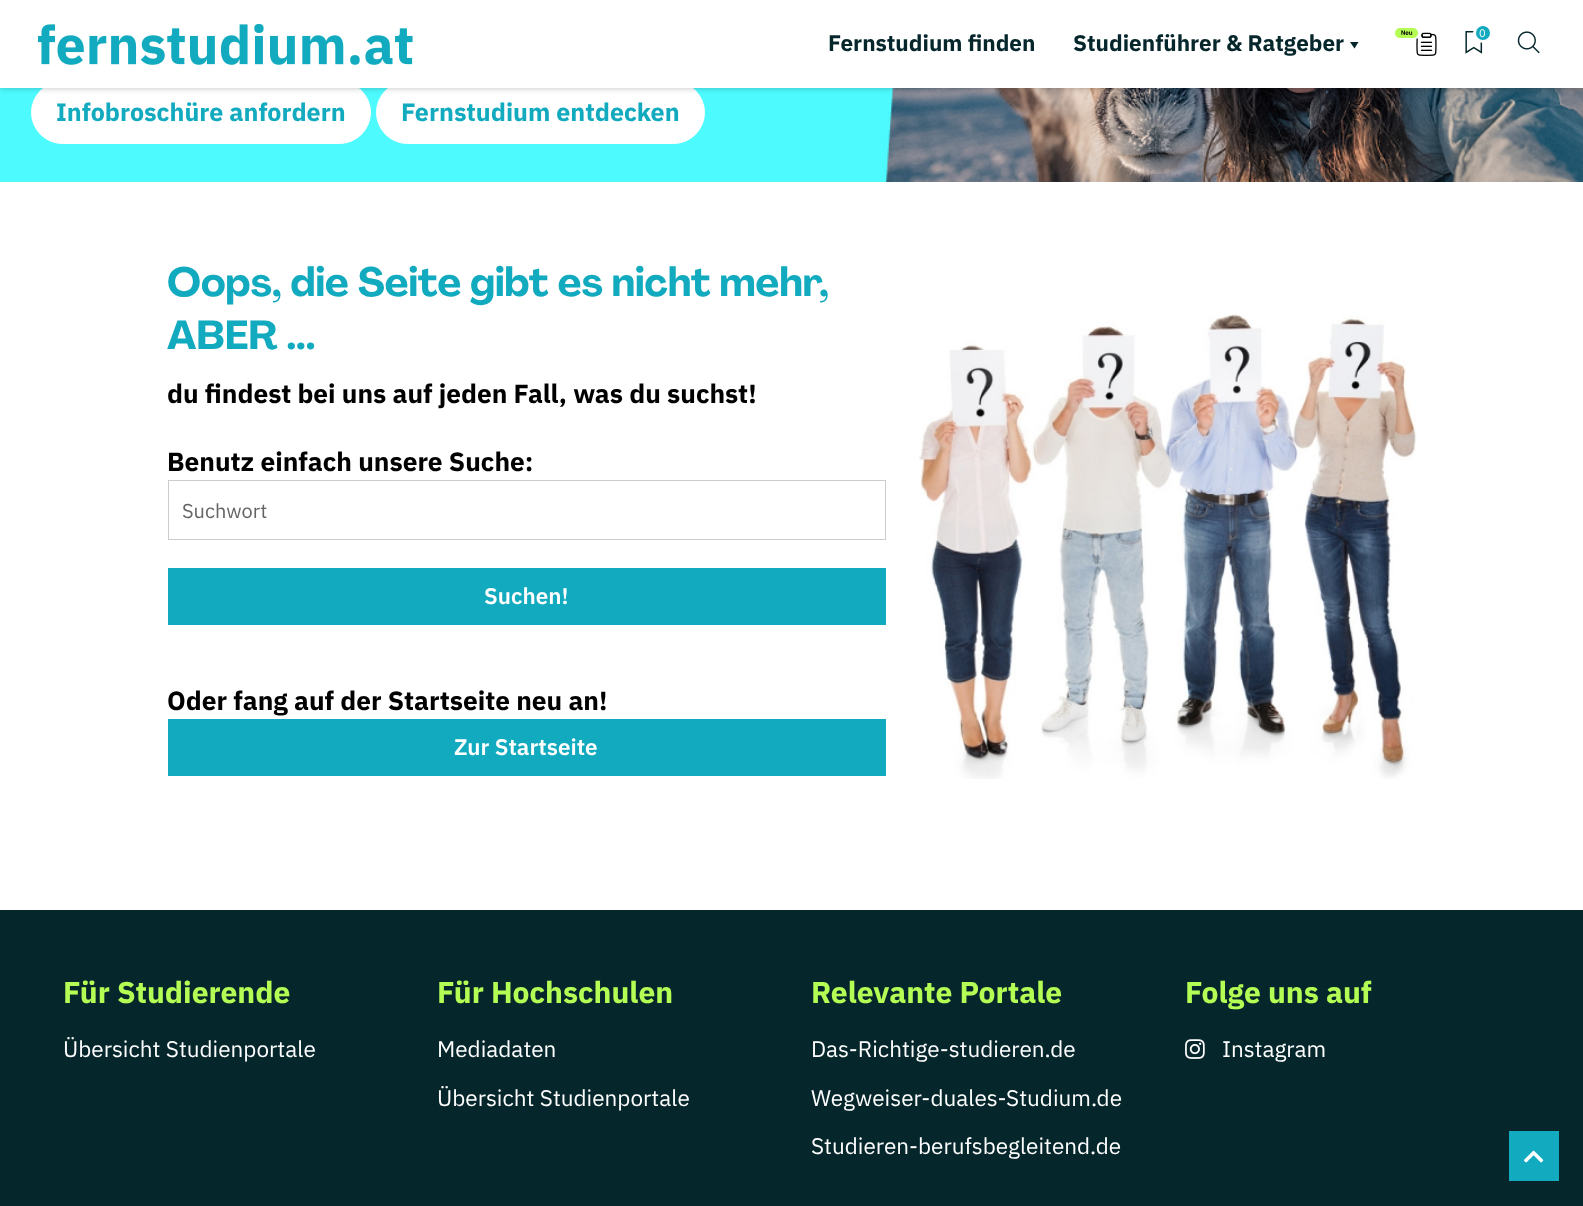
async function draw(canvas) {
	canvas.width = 1583;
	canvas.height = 1206;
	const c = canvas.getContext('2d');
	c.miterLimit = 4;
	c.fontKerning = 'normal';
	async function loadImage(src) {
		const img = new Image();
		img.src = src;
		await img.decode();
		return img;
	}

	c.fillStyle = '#fff';
	c.fillRect(0, 0, 1583, 1206);
	c.drawImage(await loadImage('img5.png'), 0, 88, 1583, 94);
	c.beginPath();
	c.roundRect(31.5, 81.5, 339, 62, 31);
	c.fill();
	c.strokeStyle = '#fff';
	c.stroke();
	c.beginPath();
	c.roundRect(376.5, 81.5, 328, 62, 31);
	c.fill();
	c.stroke();
	c.fillStyle = '#00000040';
	c.filter = 'blur(3px)';
	c.beginPath();
	c.rect(0, 0, 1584, 88);
	c.fill();
	c.filter = 'none';
	c.fillStyle = '#fff';
	c.fillRect(0, 0, 1583, 88);
	c.drawImage(await loadImage('img1.png'), 38, 24, 375, 41);
	c.font = 'bold 22.5px IBM Plex Sans';
	c.fillStyle = '#05262b';
	c.fillText('Fernstudium finden', 828, 51);
	c.fillText('Studienführer & Ratgeber', 1073, 51);
	c.beginPath();
	c.moveTo(1358.5, 42);
	c.lineTo(1354.5, 48.5);
	c.lineTo(1350, 42);
	c.closePath();
	c.fill();
	c.drawImage(await loadImage('img2.png'), 1395, 28, 42, 28);
	c.drawImage(await loadImage('img3.png'), 1465, 31, 18, 23);
	c.fillStyle = '#12aabe';
	c.beginPath();
	c.arc(1483, 33, 8.5, 0, 2 * Math.PI);
	c.fill();
	c.lineWidth = 3;
	c.stroke();
	c.letterSpacing = '-1px';
	c.font = '11px IBM Plex Sans';
	c.fillStyle = '#fff';
	c.fillText('0', 1479, 37);
	c.drawImage(await loadImage('img4.png'), 1517, 31, 23, 23);
	c.letterSpacing = '0px';
	c.font = 'bold 25px IBM Plex Sans';
	c.fillStyle = '#12aabe';
	c.fillText('Infobroschüre anfordern', 56, 121);
	c.fillText('Fernstudium entdecken', 401, 121);
	c.font = 'bold 40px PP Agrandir';
	c.fillText('Oops, die Seite gibt es nicht mehr,', 167, 296);
	c.fillText('ABER ...', 167, 349);
	c.font = 'bold 26.25px IBM Plex Sans';
	c.fillStyle = '#000';
	c.fillText('du findest bei uns auf jeden Fall, was du suchst!', 167, 403);
	c.fillText('Benutz einfach unsere Suche:', 167, 471);
	c.strokeStyle = '#ccc';
	c.lineWidth = 1;
	c.strokeRect(168.5, 480.5, 717, 59);
	c.font = '20px IBM Plex Sans';
	c.fillStyle = '#646464';
	c.fillText('Suchwort', 182, 518);
	c.fillStyle = '#12aabe';
	c.fillRect(168, 568, 718, 57);
	c.font = '600 22.5px IBM Plex Sans';
	c.fillStyle = '#fff';
	c.fillText('Suchen!', 484, 604);
	c.font = 'bold 26.25px IBM Plex Sans';
	c.fillStyle = '#000';
	c.fillText('Oder fang auf der Startseite neu an!', 167, 710);
	c.fillStyle = '#12aabe';
	c.fillRect(168, 719, 718, 57);
	c.font = '600 22.5px IBM Plex Sans';
	c.fillStyle = '#fff';
	c.fillText('Zur Startseite', 454, 755);
	c.drawImage(await loadImage('img6.png'), 919, 313, 498, 466);
	c.fillStyle = '#05262b';
	c.fillRect(0, 910, 1583, 296);
	c.font = 'bold 30px IBM Plex Sans';
	c.fillStyle = '#b4fd54';
	c.fillText('Für Studierende', 63, 1003);
	c.font = '22.5px IBM Plex Sans';
	c.fillStyle = '#fff';
	c.fillText('Übersicht Studienportale', 63, 1057);
	c.font = 'bold 30px IBM Plex Sans';
	c.fillStyle = '#b4fd54';
	c.fillText('Für Hochschulen', 437, 1003);
	c.font = '22.5px IBM Plex Sans';
	c.fillStyle = '#fff';
	c.fillText('Mediadaten', 437, 1057);
	c.fillText('Übersicht Studienportale', 437, 1106);
	c.font = 'bold 30px IBM Plex Sans';
	c.fillStyle = '#b4fd54';
	c.fillText('Relevante Portale', 811, 1003);
	c.font = '22.5px IBM Plex Sans';
	c.fillStyle = '#fff';
	for (const [text, x, y] of [
		['Das-Richtige-studieren.de', 811, 1057],
		['Wegweiser-duales-Studium.de', 811, 1106],
		['Studieren-berufsbegleitend.de', 811, 1154],
	]) {
		c.fillText(text, x, y);
	}
	c.font = 'bold 30px IBM Plex Sans';
	c.fillStyle = '#b4fd54';
	c.fillText('Folge uns auf', 1185, 1003);
	c.drawImage(await loadImage('img7.png'), 1185, 1039, 20, 20);
	c.font = '22.5px IBM Plex Sans';
	c.fillStyle = '#fff';
	c.fillText('Instagram', 1222, 1057);
	c.fillStyle = '#12aabe';
	c.fillRect(1509, 1131, 50, 50);
	c.drawImage(await loadImage('img8.png'), 1524, 1150, 20, 13);
}

draw(document.querySelector('canvas'));
